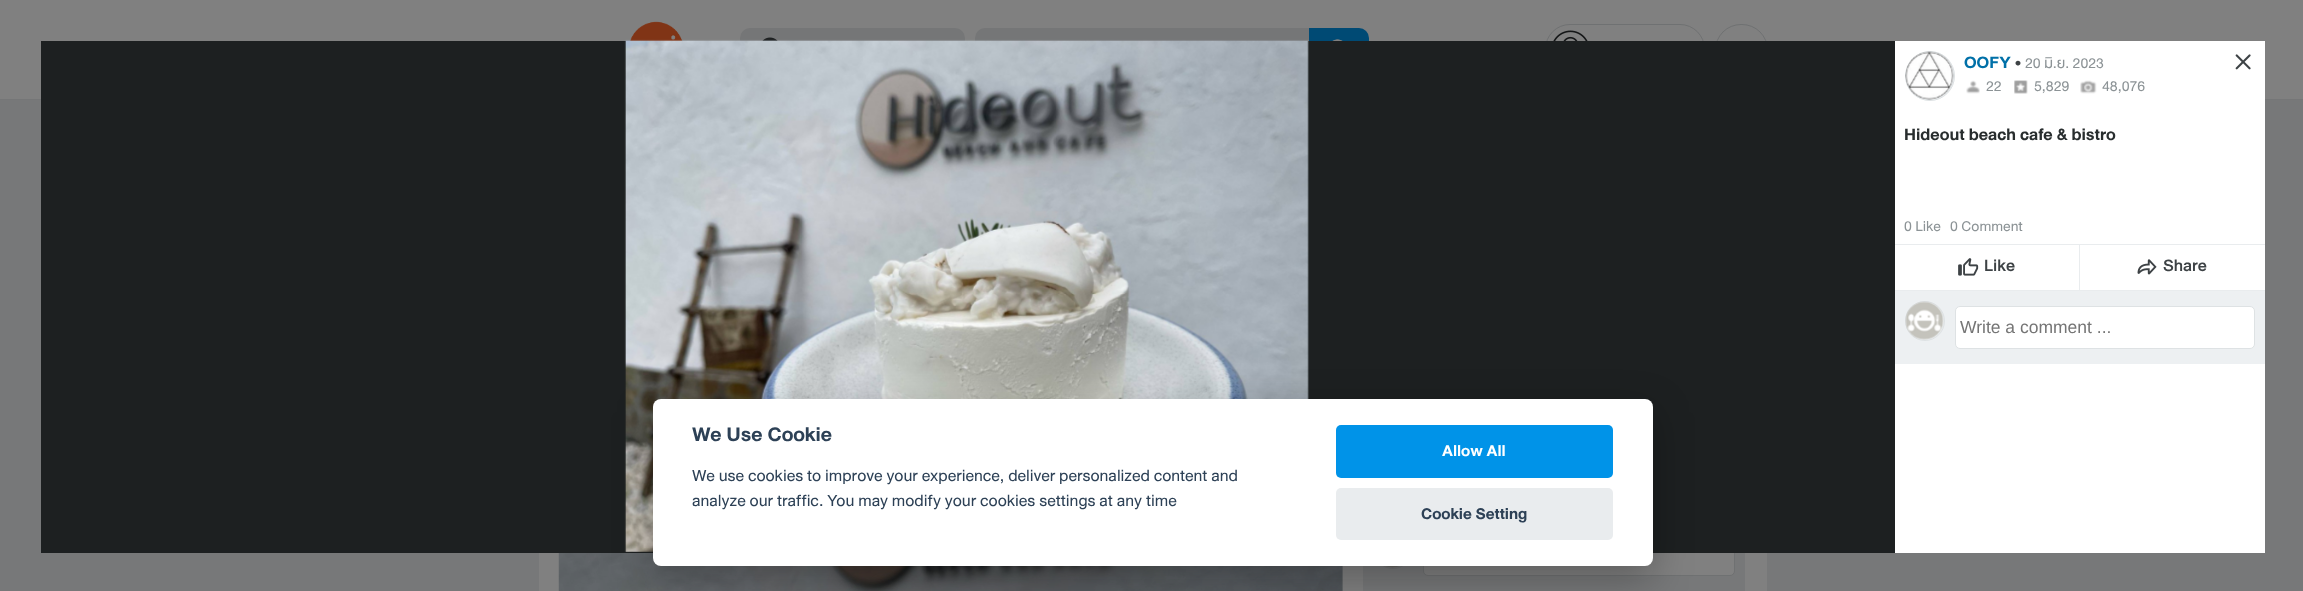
async function draw(canvas) {
	canvas.width = 2303;
	canvas.height = 591;
	const c = canvas.getContext('2d');
	c.miterLimit = 4;
	c.fontKerning = 'normal';
	async function loadImage(src) {
		const img = new Image();
		img.src = src;
		await img.decode();
		return img;
	}

	c.fillStyle = '#808080';
	c.fillRect(0, 0, 2303, 591);
	c.fillStyle = '#757677';
	c.fillRect(0, 99, 2303, 1);
	c.drawImage(await loadImage('img1.png'), 630, 21, 53, 20);
	c.beginPath();
	c.roundRect(740, 28, 225, 45, 10);
	c.fill();
	c.drawImage(await loadImage('img2.png'), 762, 37, 16, 4);
	c.beginPath();
	c.roundRect(975, 28, 334, 45, [10, 0, 0, 10]);
	c.fill();
	c.fillStyle = '#004a74';
	c.beginPath();
	c.roundRect(1309, 28, 60, 45, [0, 10, 10, 0]);
	c.fill();
	c.drawImage(await loadImage('img3.png'), 1332, 39, 11, 2);
	c.beginPath();
	c.roundRect(1545.5, 24.5, 159, 51, 24.5);
	c.strokeStyle = '#6f7172';
	c.stroke();
	c.drawImage(await loadImage('img4.png'), 1553, 30, 35, 11);
	c.beginPath();
	c.roundRect(1715.5, 24.5, 52, 51, 25.5);
	c.stroke();
	for (const [x, y, w, h, color] of [
		[0, 100, 2303, 491, '#777879'],
		[539, 553, 1228, 38, '#808080'],
		[1342, 566, 1, 25, '#777879'],
	]) {
		c.fillStyle = color;
		c.fillRect(x, y, w, h);
	}
	c.drawImage(await loadImage('img5.png'), 558, 553, 785, 38);
	c.fillRect(1363, 553, 382, 38);
	c.beginPath();
	c.arc(1393, 549, 19.5, 0, 2 * Math.PI);
	c.stroke();
	c.drawImage(await loadImage('img6.png'), 1384, 566, 17, 2);
	c.fillStyle = '#808080';
	c.beginPath();
	c.roundRect(1423.5, 534.5, 311, 41, 4.5);
	c.fill();
	c.stroke();
	c.fillStyle = '#fff';
	c.fillRect(1895, 41, 370, 512);
	c.fillStyle = '#1d2021';
	c.fillRect(41, 41, 1854, 512);
	c.drawImage(await loadImage('img7.png'), 624, 39, 685, 513);
	c.fillStyle = '#edf0f2';
	c.beginPath();
	c.arc(1930, 76, 24.5, 0, 2 * Math.PI);
	c.fill();
	c.strokeStyle = '#dee2e4';
	c.stroke();
	c.drawImage(await loadImage('img8.png'), 1905, 51, 49, 49);
	c.font = 'bold 17.5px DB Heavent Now';
	c.fillStyle = '#0070a8';
	c.fillText('OOFY', 1964, 68);
	c.font = '17.5px DB Heavent Now';
	c.fillStyle = '#3d4245';
	c.fillText('•', 2015, 68);
	c.font = '15px DB Heavent Now';
	c.fillStyle = '#8c9396';
	c.fillText('20 มิ.ย. 2023', 2025, 68);
	c.drawImage(await loadImage('img9.png'), 1966, 80, 14, 14);
	c.fillText('22', 1986, 91);
	c.drawImage(await loadImage('img10.png'), 2014, 80, 14, 14);
	c.fillText('5,829', 2034, 91);
	c.drawImage(await loadImage('img11.png'), 2080, 80, 17, 14);
	c.fillText('48,076', 2102, 91);
	c.font = 'bold 17.5px DB Heavent Now';
	c.fillStyle = '#282d2e';
	c.fillText('Hideout beach cafe & bistro', 1904, 140);
	c.font = '15px DB Heavent Now';
	c.fillStyle = '#8c9396';
	c.fillText('0 Like', 1904, 231);
	c.fillText('0 Comment', 1950, 231);
	c.fillStyle = '#e9ecee';
	c.fillRect(1895, 244, 370, 47);
	c.fillStyle = '#fff';
	c.fillRect(1895, 245, 184, 45);
	c.drawImage(await loadImage('img12.png'), 1958, 258, 21, 18);
	c.font = '500 17.5px DB Heavent Now';
	c.fillStyle = '#3d4245';
	c.fillText('Like', 1984, 271);
	c.fillStyle = '#fff';
	c.fillRect(2080, 245, 185, 45);
	c.drawImage(await loadImage('img13.png'), 2137, 259, 20, 16);
	c.fillStyle = '#3d4245';
	c.fillText('Share', 2163, 271);
	c.fillStyle = '#edf0f2';
	c.fillRect(1895, 291, 370, 73);
	c.beginPath();
	c.arc(1925, 321, 19.5, 0, 2 * Math.PI);
	c.stroke();
	c.drawImage(await loadImage('img14.png'), 1905, 301, 39, 39);
	c.fillStyle = '#fff';
	c.beginPath();
	c.roundRect(1955.5, 306.5, 299, 42, 4.5);
	c.fill();
	c.stroke();
	c.font = '17.5px Liberation Sans';
	c.fillStyle = '#757575';
	c.fillText('Write a comment ...', 1960, 333);
	c.drawImage(await loadImage('img15.png'), 2235, 54, 16, 16);
	c.fillStyle = '#02020347';
	c.filter = 'blur(19px)';
	c.beginPath();
	c.roundRect(653, 411, 1000, 168, 8);
	c.fill();
	c.filter = 'none';
	c.fillStyle = '#fff';
	c.beginPath();
	c.roundRect(653, 399, 1000, 167, 8);
	c.fill();
	c.font = 'bold 21px DB Heavent Now';
	c.fillStyle = '#2d4156';
	c.fillText('We Use Cookie', 692, 441);
	c.font = '17px DB Heavent Now';
	c.fillText('We use cookies to improve your experience, deliver personalized content and', 692, 481);
	c.fillText('analyze our traffic. You may modify your cookies settings at any time', 692, 506);
	c.fillStyle = '#0093e8';
	c.beginPath();
	c.roundRect(1336, 425, 277, 53, 5);
	c.fill();
	c.font = 'bold 16.5px DB Heavent Now';
	c.fillStyle = '#fff';
	c.fillText('Allow All', 1442, 456);
	c.fillStyle = '#e9ecee';
	c.beginPath();
	c.roundRect(1336, 488, 277, 52, 5);
	c.fill();
	c.fillStyle = '#2d4156';
	c.fillText('Cookie Setting', 1421, 519);
}

draw(document.querySelector('canvas'));
